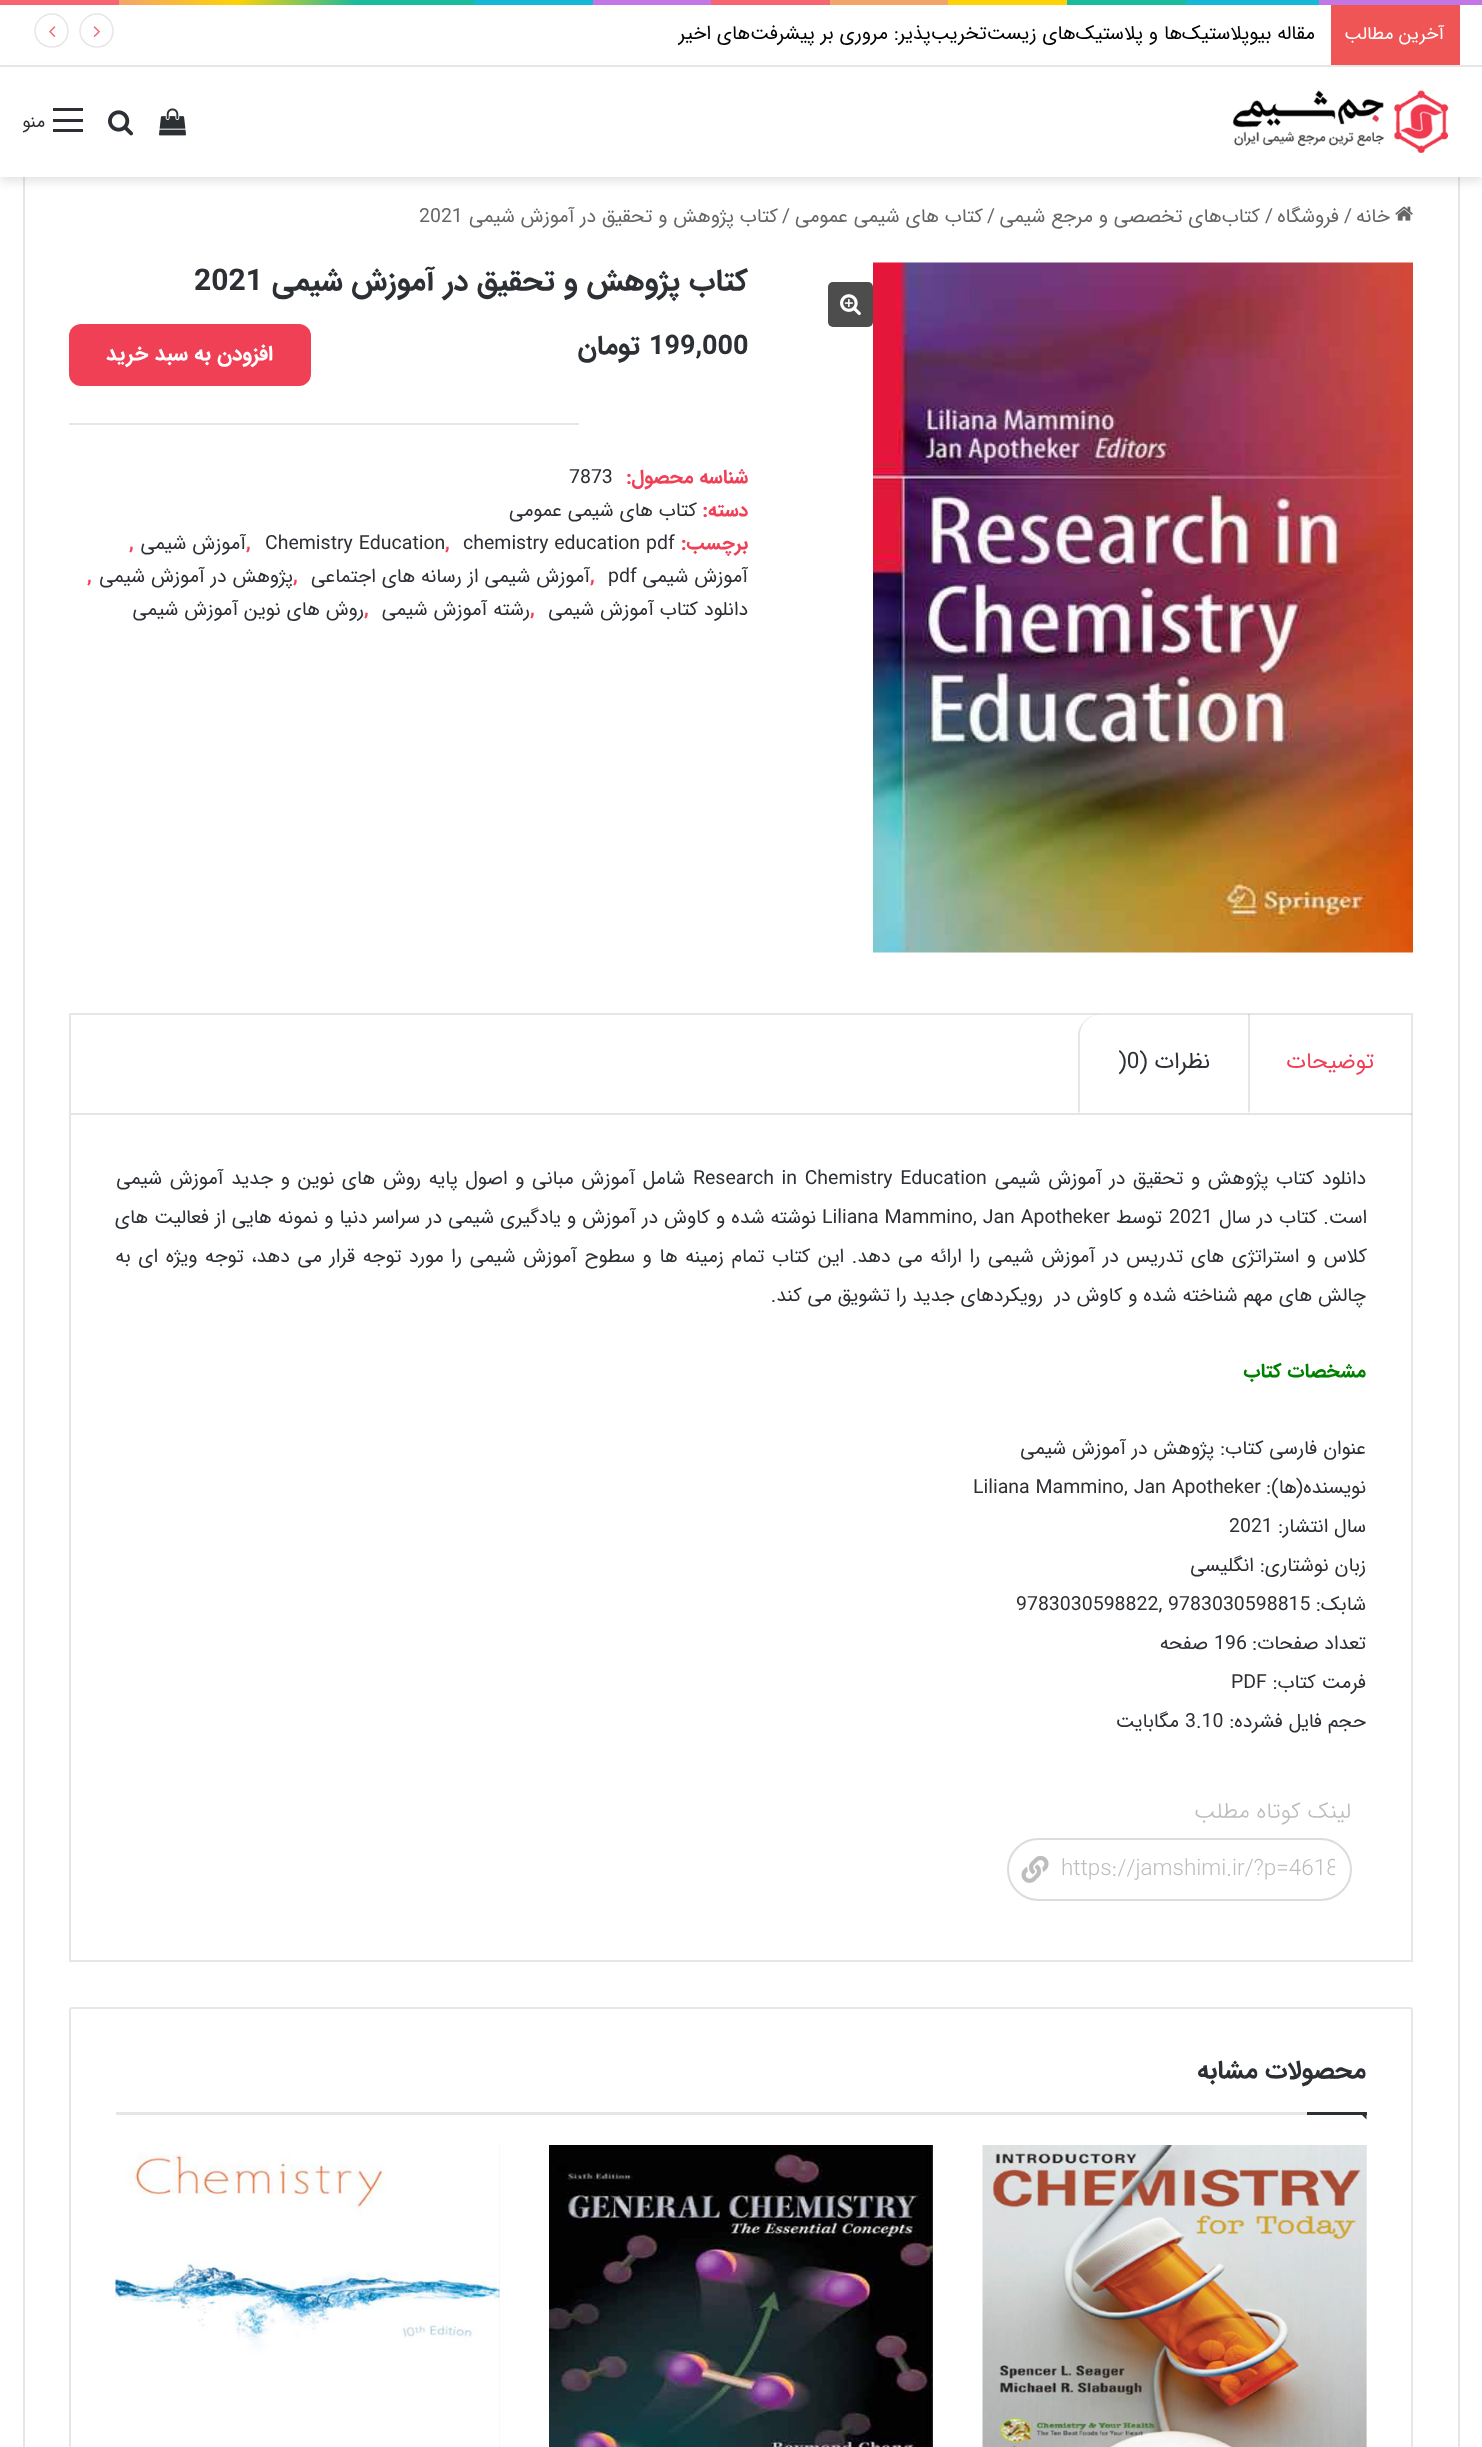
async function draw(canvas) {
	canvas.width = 1482;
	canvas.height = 2447;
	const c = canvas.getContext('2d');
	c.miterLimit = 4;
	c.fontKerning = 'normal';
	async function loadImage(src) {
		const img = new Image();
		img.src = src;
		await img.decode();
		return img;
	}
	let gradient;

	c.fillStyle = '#fff';
	c.fillRect(0, 0, 1482, 2447);
	gradient = c.createLinearGradient(0, 2.3, 1482, 2.2);
	gradient.addColorStop(0, '#f76570');
	gradient.addColorStop(0.08, '#f76570');
	gradient.addColorStop(0.08, '#f3a46b');
	gradient.addColorStop(0.16, '#ffd205');
	gradient.addColorStop(0.24, '#1bbc9b');
	gradient.addColorStop(0.32, '#1bbc9b');
	gradient.addColorStop(0.32, '#14b9d5');
	gradient.addColorStop(0.4, '#14b9d5');
	gradient.addColorStop(0.4, '#c377e4');
	gradient.addColorStop(0.48, '#c377e4');
	gradient.addColorStop(0.48, '#f76570');
	gradient.addColorStop(0.56, '#f76570');
	gradient.addColorStop(0.56, '#f3a46b');
	gradient.addColorStop(0.64, '#f3a46b');
	gradient.addColorStop(0.64, '#ffd205');
	gradient.addColorStop(0.72, '#ffd205');
	gradient.addColorStop(0.72, '#1bbc9b');
	gradient.addColorStop(0.8, '#1bbc9b');
	gradient.addColorStop(0.8, '#14b9d5');
	gradient.addColorStop(0.89, '#14b9d5');
	gradient.addColorStop(0.89, '#c377e4');
	gradient.addColorStop(1, '#c377e4');
	c.fillStyle = gradient;
	c.fillRect(0, 0, 1482, 5);
	c.strokeStyle = '#e6e6e6';
	c.lineWidth = 2;
	c.strokeRect(24, 156, 1435, 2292);
	c.fillStyle = '#0000001a';
	c.filter = 'blur(5px)';
	c.beginPath();
	c.rect(0, 71, 1482, 111);
	c.fill();
	c.filter = 'none';
	c.fillStyle = '#e6e6e6';
	c.fillRect(0, 65, 1482, 2);
	c.fillStyle = '#f05555';
	c.fillRect(1331, 5, 129, 60);
	c.direction = 'rtl';
	c.font = '18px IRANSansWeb';
	c.fillStyle = '#fff';
	c.fillText('آخرین مطالب', 1444, 39);
	c.font = '19.5px IRANSansWeb';
	c.fillStyle = '#000';
	c.fillText('مقاله بیوپلاستیک‌ها و پلاستیک‌های زیست‌تخریب‌پذیر: مروری بر پیشرفت‌های اخیر', 1315, 39);
	c.beginPath();
	c.moveTo(97, 47);
	c.bezierCurveTo(87.5, 47, 80, 40, 80, 31);
	c.bezierCurveTo(80, 21.5, 87.5, 14, 97, 14);
	c.bezierCurveTo(106, 14, 113, 21.5, 113, 31);
	c.bezierCurveTo(113, 40, 106, 47, 97, 47);
	c.closePath();
	c.lineWidth = 1.5;
	c.stroke();
	c.drawImage(await loadImage('img1.png'), 93, 26, 7, 11);
	c.beginPath();
	c.moveTo(52, 47);
	c.bezierCurveTo(42.5, 47, 35, 40, 35, 31);
	c.bezierCurveTo(35, 21.5, 42.5, 14, 52, 14);
	c.bezierCurveTo(61, 14, 68, 21.5, 68, 31);
	c.bezierCurveTo(68, 40, 61, 47, 52, 47);
	c.closePath();
	c.stroke();
	c.drawImage(await loadImage('img2.png'), 49, 26, 7, 11);
	c.fillStyle = '#fff';
	c.fillRect(0, 67, 1482, 110);
	c.drawImage(await loadImage('img3.png'), 1232, 89, 217, 65);
	c.drawImage(await loadImage('img4.png'), 159, 108, 27, 28);
	c.drawImage(await loadImage('img5.png'), 108, 110, 26, 26);
	for (const [x, y, w, h, color] of [
		[53, 119, 30, 3, '#2c2f34'],
		[53, 108, 30, 3, '#2c2f34'],
		[53, 129, 30, 3, '#2c2f34'],
	]) {
		c.fillStyle = color;
		c.fillRect(x, y, w, h);
	}
	c.font = '18px IRANSansWeb';
	c.fillText('منو', 45, 127);
	c.drawImage(await loadImage('img6.png'), 1395, 206, 18, 15);
	c.font = '19.5px IRANSansWeb';
	c.fillStyle = '#666';
	c.fillText('خانه', 1390, 222);
	c.direction = 'ltr';
	c.fillText('/', 1344, 222);
	c.direction = 'rtl';
	c.fillText('فروشگاه', 1339, 222);
	c.direction = 'ltr';
	c.fillText('/', 1265, 222);
	c.direction = 'rtl';
	c.fillText('کتاب‌های تخصصی و مرجع شیمی', 1260, 222);
	c.direction = 'ltr';
	c.fillText('/', 987, 222);
	c.direction = 'rtl';
	c.fillText('کتاب های شیمی عمومی', 983, 222);
	c.direction = 'ltr';
	c.fillText('/', 782, 222);
	c.direction = 'rtl';
	c.fillText('کتاب پژوهش و تحقیق در آموزش شیمی', 778, 222);
	c.direction = 'ltr';
	c.fillText('2021', 419, 222);
	c.drawImage(await loadImage('img7.png'), 873, 262, 540, 691);
	c.fillStyle = '#4d4d4d';
	c.beginPath();
	c.roundRect(828, 282, 45, 45, 5);
	c.fill();
	c.drawImage(await loadImage('img8.png'), 840, 294, 21, 22);
	c.direction = 'rtl';
	c.font = 'bold 30px IRANSansWeb';
	c.fillStyle = '#2c2f34';
	c.fillText('کتاب پژوهش و تحقیق در آموزش شیمی', 748, 290);
	c.direction = 'ltr';
	c.fillText('2021', 194, 290);
	c.font = 'bold 27px IRANSansWeb';
	c.fillText('199,000', 649, 354);
	c.direction = 'rtl';
	c.fillText('تومان', 640, 354);
	c.fillStyle = '#e6e6e6';
	c.fillRect(69, 423, 510, 2);
	c.fillStyle = '#ef4056';
	c.beginPath();
	c.roundRect(69, 324, 242, 62, 12);
	c.fill();
	c.font = 'bold 21px IRANSansWeb';
	c.fillStyle = '#fff';
	c.fillText('افزودن به سبد خرید', 273, 360);
	c.font = 'bold 19.5px IRANSansWeb';
	c.fillStyle = '#ef4056';
	c.fillText('شناسه محصول:', 748, 483);
	c.direction = 'ltr';
	c.font = '19.5px IRANSansWeb';
	c.fillStyle = '#2c2f34';
	c.fillText('7873', 569, 483);
	c.direction = 'rtl';
	c.font = 'bold 19.5px IRANSansWeb';
	c.fillStyle = '#ef4056';
	c.fillText('دسته:', 748, 516);
	c.font = '19.5px IRANSansWeb';
	c.fillStyle = '#2c2f34';
	c.fillText('کتاب های شیمی عمومی', 697, 516);
	c.font = 'bold 19.5px IRANSansWeb';
	c.fillStyle = '#ef4056';
	c.fillText('برچسب:', 748, 549);
	c.direction = 'ltr';
	c.font = '19.5px IRANSansWeb';
	c.fillStyle = '#2c2f34';
	c.fillText('chemistry education pdf', 463, 549);
	c.font = 'bold 19.5px IRANSansWeb';
	c.fillStyle = '#ef4056';
	c.fillText(',', 445, 549);
	c.font = '19.5px IRANSansWeb';
	c.fillStyle = '#2c2f34';
	c.fillText('Chemistry Education', 265, 549);
	c.font = 'bold 19.5px IRANSansWeb';
	c.fillStyle = '#ef4056';
	c.fillText(',', 246, 549);
	c.direction = 'rtl';
	c.font = '19.5px IRANSansWeb';
	c.fillStyle = '#2c2f34';
	c.fillText('آموزش شیمی', 246, 549);
	c.direction = 'ltr';
	c.font = 'bold 19.5px IRANSansWeb';
	c.fillStyle = '#ef4056';
	c.fillText(',', 129, 549);
	c.direction = 'rtl';
	c.font = '19.5px IRANSansWeb';
	c.fillStyle = '#2c2f34';
	c.fillText('آموزش شیمی', 748, 582);
	c.direction = 'ltr';
	c.fillText('pdf', 608, 582);
	c.font = 'bold 19.5px IRANSansWeb';
	c.fillStyle = '#ef4056';
	c.fillText(',', 590, 582);
	c.direction = 'rtl';
	c.font = '19.5px IRANSansWeb';
	c.fillStyle = '#2c2f34';
	c.fillText('آموزش شیمی از رسانه های اجتماعی', 590, 582);
	c.direction = 'ltr';
	c.font = 'bold 19.5px IRANSansWeb';
	c.fillStyle = '#ef4056';
	c.fillText(',', 293, 582);
	c.direction = 'rtl';
	c.font = '19.5px IRANSansWeb';
	c.fillStyle = '#2c2f34';
	c.fillText('پژوهش در آموزش شیمی', 293, 582);
	c.direction = 'ltr';
	c.font = 'bold 19.5px IRANSansWeb';
	c.fillStyle = '#ef4056';
	c.fillText(',', 87, 582);
	c.direction = 'rtl';
	c.font = '19.5px IRANSansWeb';
	c.fillStyle = '#2c2f34';
	c.fillText('دانلود کتاب آموزش شیمی', 748, 615);
	c.direction = 'ltr';
	c.font = 'bold 19.5px IRANSansWeb';
	c.fillStyle = '#ef4056';
	c.fillText(',', 530, 615);
	c.direction = 'rtl';
	c.font = '19.5px IRANSansWeb';
	c.fillStyle = '#2c2f34';
	c.fillText('رشته آموزش شیمی', 530, 615);
	c.direction = 'ltr';
	c.font = 'bold 19.5px IRANSansWeb';
	c.fillStyle = '#ef4056';
	c.fillText(',', 364, 615);
	c.direction = 'rtl';
	c.font = '19.5px IRANSansWeb';
	c.fillStyle = '#2c2f34';
	c.fillText('روش های نوین آموزش شیمی', 364, 615);
	c.lineWidth = 2;
	c.strokeRect(70, 1014, 1342, 947);
	c.fillStyle = '#0000001a';
	c.fillRect(71, 1113, 1341, 2);
	c.beginPath();
	c.moveTo(1248, 1014);
	c.lineTo(1250, 1014);
	c.lineTo(1250, 1111);
	c.lineTo(1248, 1113);
	c.closePath();
	c.fill();
	c.font = '22.5px IRANSansWeb';
	c.fillStyle = '#ef4056';
	c.fillText('توضیحات', 1374, 1068);
	c.fillStyle = '#0000001a';
	c.beginPath();
	c.moveTo(1078, 1113);
	c.lineTo(1078, 1032);
	c.bezierCurveTo(1081, 1022, 1090, 1014, 1100, 1014);
	c.bezierCurveTo(1089, 1015, 1080, 1024, 1080, 1036);
	c.lineTo(1080, 1112);
	c.closePath();
	c.fill();
	c.fillStyle = '#2c2f34';
	c.fillText('نظرات (', 1210, 1068);
	c.direction = 'ltr';
	c.fillText(')0', 1118, 1068);
	c.wordSpacing = '1.75px';
	c.direction = 'rtl';
	c.font = '19.5px IRANSansWeb';
	c.fillText('دانلود کتاب پژوهش و تحقیق در آموزش شیمی', 1366, 1184);
	c.direction = 'ltr';
	c.fillText('Research in Chemistry Education', 693, 1184);
	c.direction = 'rtl';
	c.fillText('شامل آموزش مبانی و اصول پایه روش های نوین و جدید آموزش شیمی', 685, 1184);
	c.wordSpacing = '0.2px';
	c.fillText('است. کتاب در سال', 1367, 1223);
	c.wordSpacing = '0px';
	c.direction = 'ltr';
	c.fillText('2021', 1169, 1223);
	c.direction = 'rtl';
	c.fillText('توسط', 1162, 1223);
	c.direction = 'ltr';
	c.fillText('Liliana Mammino, Jan Apotheker', 822, 1223);
	c.wordSpacing = '0.2px';
	c.direction = 'rtl';
	c.fillText('نوشته شده و کاوش در آموزش و یادگیری شیمی در سراسر دنیا و نمونه هایی از فعالیت های', 816, 1223);
	c.wordSpacing = '1.75px';
	c.fillText('کلاس و استراتژی های تدریس در آموزش شیمی را ارائه می دهد. این کتاب تمام زمینه ها و سطوح آموزش شیمی را مورد توجه قرار می دهد، توجه ویژه ای به', 1367, 1262);
	c.wordSpacing = '0px';
	c.fillText('چالش های مهم شناخته شده و کاوش در  رویکردهای جدید را تشویق می کند.', 1366, 1301);
	c.font = 'bold 19.5px IRANSansWeb';
	c.fillStyle = '#008000';
	c.fillText('مشخصات کتاب', 1366, 1377);
	c.font = '19.5px IRANSansWeb';
	c.fillStyle = '#2c2f34';
	c.fillText('عنوان فارسی کتاب: پژوهش در آموزش شیمی', 1366, 1454);
	c.fillText('نویسنده(ها):', 1366, 1493);
	c.direction = 'ltr';
	c.fillText('Liliana Mammino, Jan Apotheker', 973, 1493);
	c.direction = 'rtl';
	c.fillText('سال انتشار:', 1366, 1532);
	c.direction = 'ltr';
	c.fillText('2021', 1229, 1532);
	c.direction = 'rtl';
	c.fillText('زبان نوشتاری: انگلیسی', 1366, 1571);
	c.fillText('شابک:', 1366, 1610);
	c.direction = 'ltr';
	c.fillText('9783030598822, 9783030598815', 1016, 1610);
	c.direction = 'rtl';
	c.fillText('تعداد صفحات:', 1366, 1649);
	c.direction = 'ltr';
	c.fillText('196', 1214, 1649);
	c.direction = 'rtl';
	c.fillText('صفحه', 1208, 1649);
	c.fillText('فرمت کتاب:', 1366, 1688);
	c.direction = 'ltr';
	c.fillText('PDF', 1231, 1688);
	c.direction = 'rtl';
	c.fillText('حجم فایل فشرده:', 1366, 1727);
	c.direction = 'ltr';
	c.fillText('3.10', 1185, 1727);
	c.direction = 'rtl';
	c.fillText('مگابایت', 1179, 1727);
	c.font = '300 22.5px IRANSansWeb';
	c.fillStyle = '#bdbdbd';
	c.fillText('لینک کوتاه مطلب', 1351, 1818);
	c.beginPath();
	c.roundRect(1008, 1839, 343, 61, 30.5);
	c.strokeStyle = '#dcdcdc';
	c.stroke();
	c.save();
	c.beginPath();
	c.rect(1061, 1851, 274, 36);
	c.clip();
	c.direction = 'ltr';
	c.fillText('https://jamshimi.ir/?p=4618', 1061, 1875);
	c.restore();
	c.drawImage(await loadImage('img9.png'), 1021, 1855, 28, 28);
	c.beginPath();
	c.roundRect(70, 2008, 1342, 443, 2);
	c.strokeStyle = '#e6e6e6';
	c.stroke();
	c.fillStyle = '#e6e6e6';
	c.fillRect(116, 2112, 1191, 3);
	c.font = 'bold 25.5px IRANSansWeb';
	c.fillStyle = '#2c2f34';
	c.fillText('محصولات مشابه', 1366, 2078);
	c.beginPath();
	c.moveTo(1359, 2112);
	c.lineTo(1366.5, 2112);
	c.lineTo(1366.5, 2119.5);
	c.closePath();
	c.fill();
	c.fillRect(1307, 2112, 60, 3);
	c.fillStyle = '#f1f1f1';
	c.fillRect(1366, 2145, 1, 302);
	c.drawImage(await loadImage('img10.png'), 982, 2145, 385, 302);
	c.drawImage(await loadImage('img11.png'), 549, 2145, 384, 302);
	c.fillRect(499, 2145, 1, 302);
	c.drawImage(await loadImage('img12.png'), 115, 2145, 385, 302);
}

draw(document.querySelector('canvas'));
